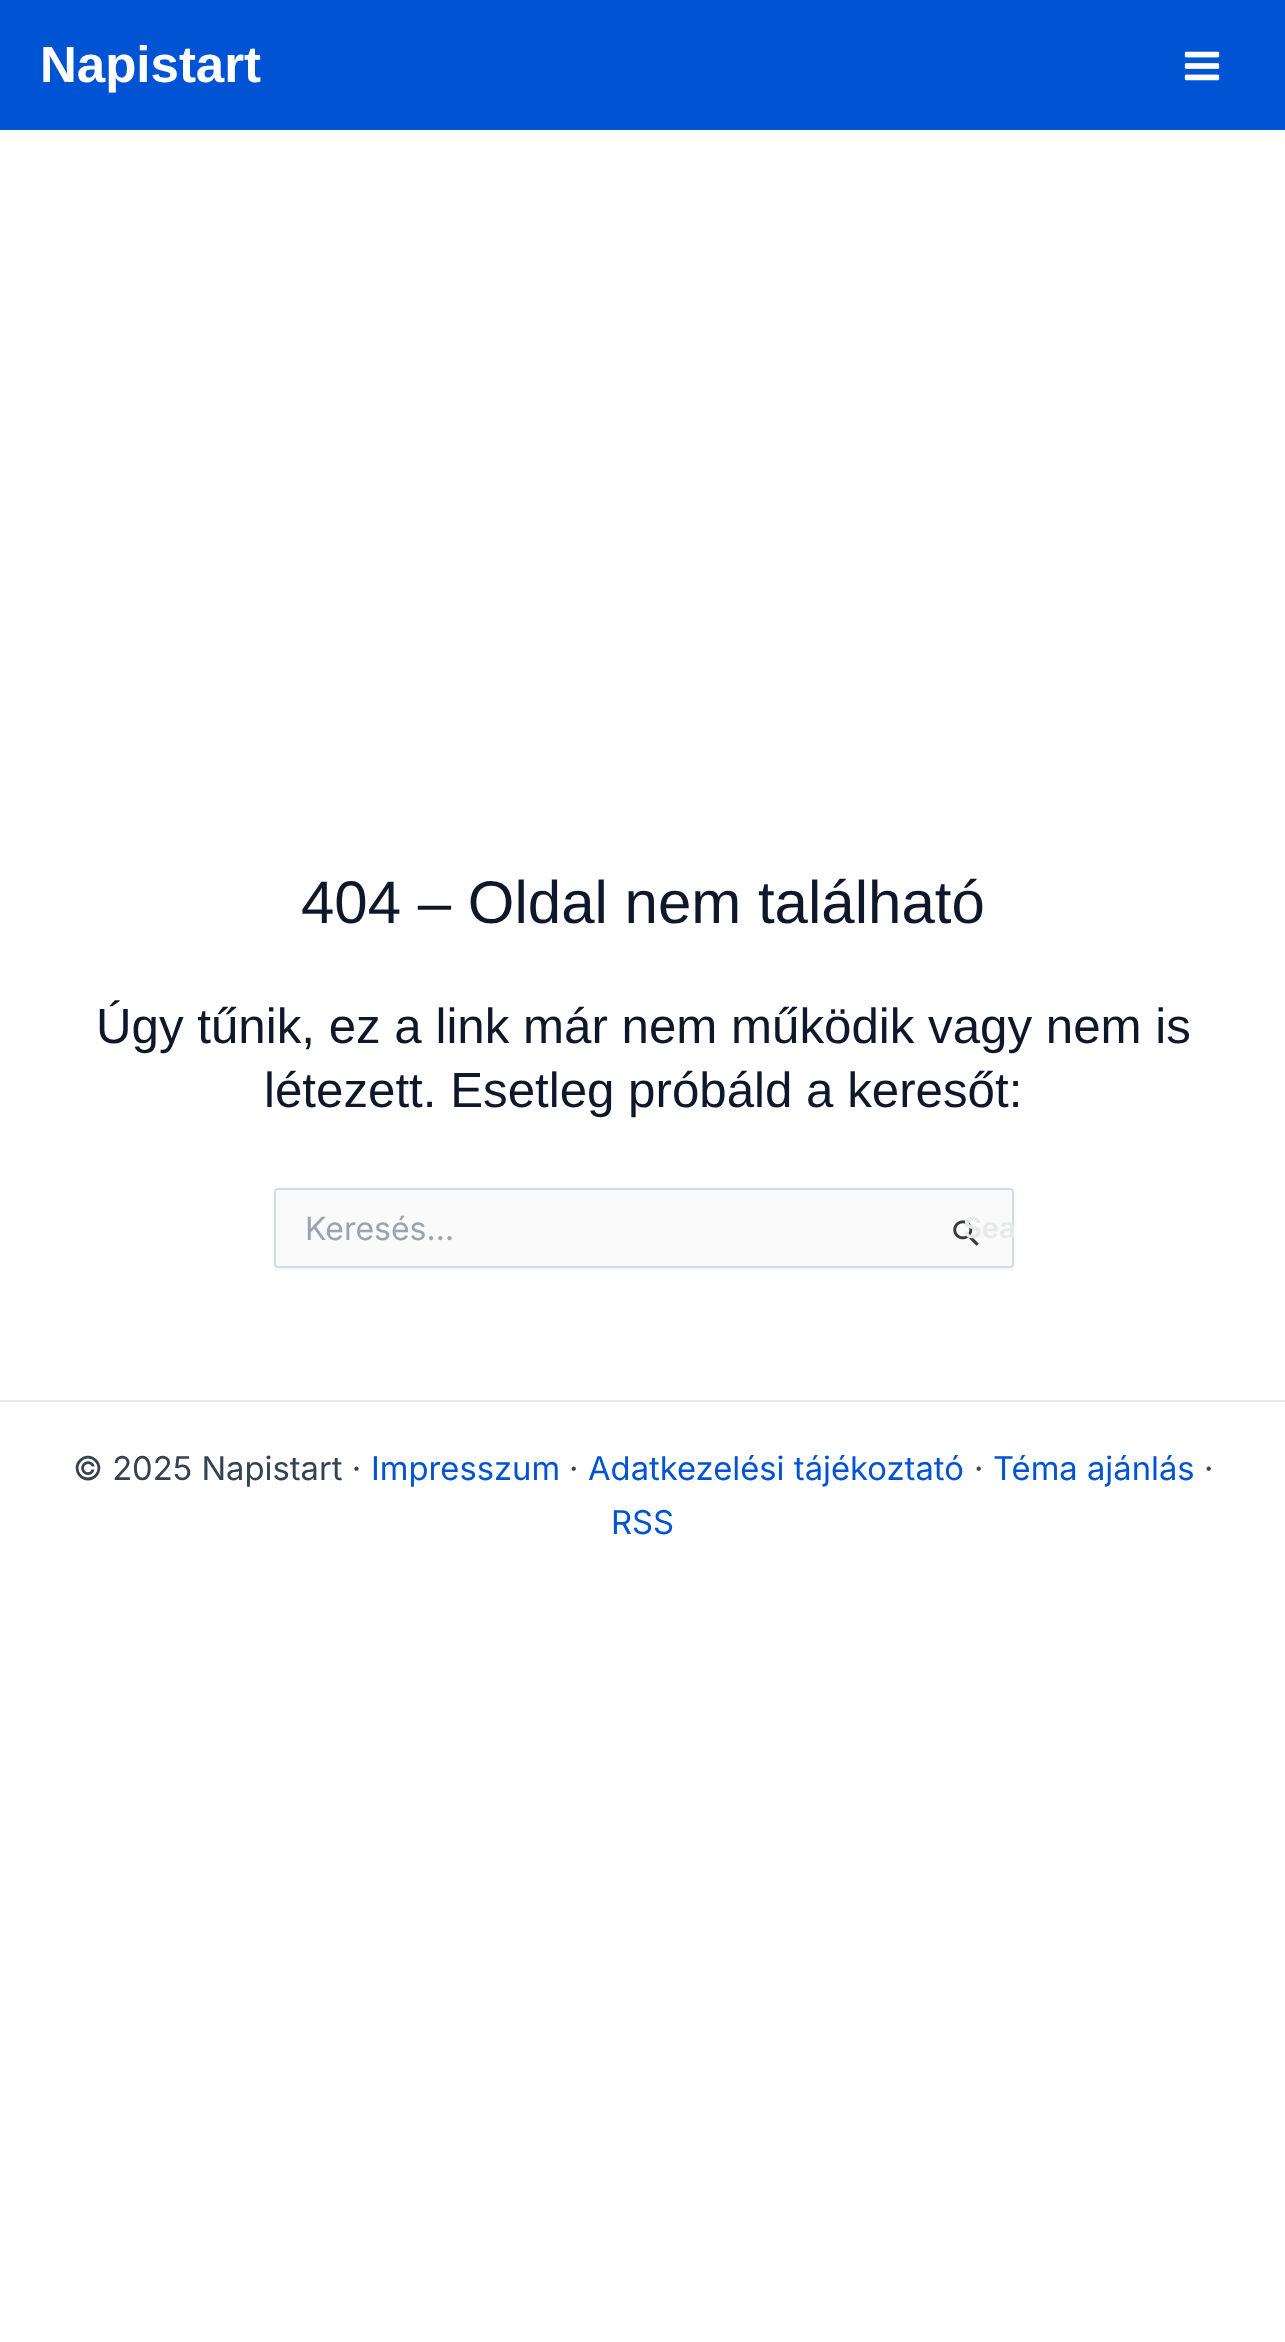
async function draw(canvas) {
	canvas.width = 1285;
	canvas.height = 2342;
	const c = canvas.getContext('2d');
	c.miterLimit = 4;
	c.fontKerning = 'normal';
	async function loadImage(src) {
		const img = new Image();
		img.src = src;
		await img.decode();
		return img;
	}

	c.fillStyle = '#fff';
	c.fillRect(0, 0, 1285, 2342);
	c.fillStyle = '#0054d3';
	c.fillRect(0, 0, 1285, 130);
	c.font = 'bold 51px Liberation Sans';
	c.fillStyle = '#fff';
	c.fillText('Napistart', 40, 82);
	c.drawImage(await loadImage('img1.png'), 1184, 51, 36, 30);
	c.font = '60px Liberation Sans';
	c.fillStyle = '#0f172a';
	c.fillText('404 – Oldal nem található', 301, 923);
	c.font = '49.25px Liberation Sans';
	c.fillText('Úgy tűnik, ez a link már nem működik vagy nem is', 96, 1043);
	c.fillText('létezett. Esetleg próbáld a keresőt:', 264, 1107);
	c.fillStyle = '#0000000d';
	c.filter = 'blur(2px)';
	c.beginPath();
	c.roundRect(274, 1190, 740, 80, 4);
	c.fill();
	c.filter = 'none';
	c.fillStyle = '#fafafa';
	c.beginPath();
	c.roundRect(275, 1189, 738, 78, 3);
	c.fill();
	c.strokeStyle = '#d1dae5';
	c.lineWidth = 2;
	c.stroke();
	c.font = '32px Inter';
	c.fillStyle = '#9ca3af';
	c.fillText('Keresés…', 305, 1240);
	c.drawImage(await loadImage('img2.png'), 953, 1220, 26, 26);
	c.save();
	c.beginPath();
	c.roundRect(924, 1188, 90, 82, 4);
	c.clip();
	c.font = '600 29px Inter';
	c.fillStyle = '#e7e8e8';
	c.fillText('Sea', 963, 1238);
	c.restore();
	c.fillStyle = '#eaeaea';
	c.fillRect(0, 1400, 1285, 2);
	c.font = '32.75px Inter';
	c.fillStyle = '#364151';
	c.fillText('© 2025 Napistart ·', 73, 1480);
	c.fillStyle = '#0054d3';
	c.fillText('Impresszum', 371, 1480);
	c.fillStyle = '#364151';
	c.fillText('·', 569, 1480);
	c.fillStyle = '#0054d3';
	c.fillText('Adatkezelési tájékoztató', 588, 1480);
	c.fillStyle = '#364151';
	c.fillText('·', 974, 1480);
	c.fillStyle = '#0054d3';
	c.fillText('Téma ajánlás', 993, 1480);
	c.fillStyle = '#364151';
	c.fillText('·', 1204, 1480);
	c.fillStyle = '#0054d3';
	c.fillText('RSS', 611, 1534);
}

draw(document.querySelector('canvas'));
